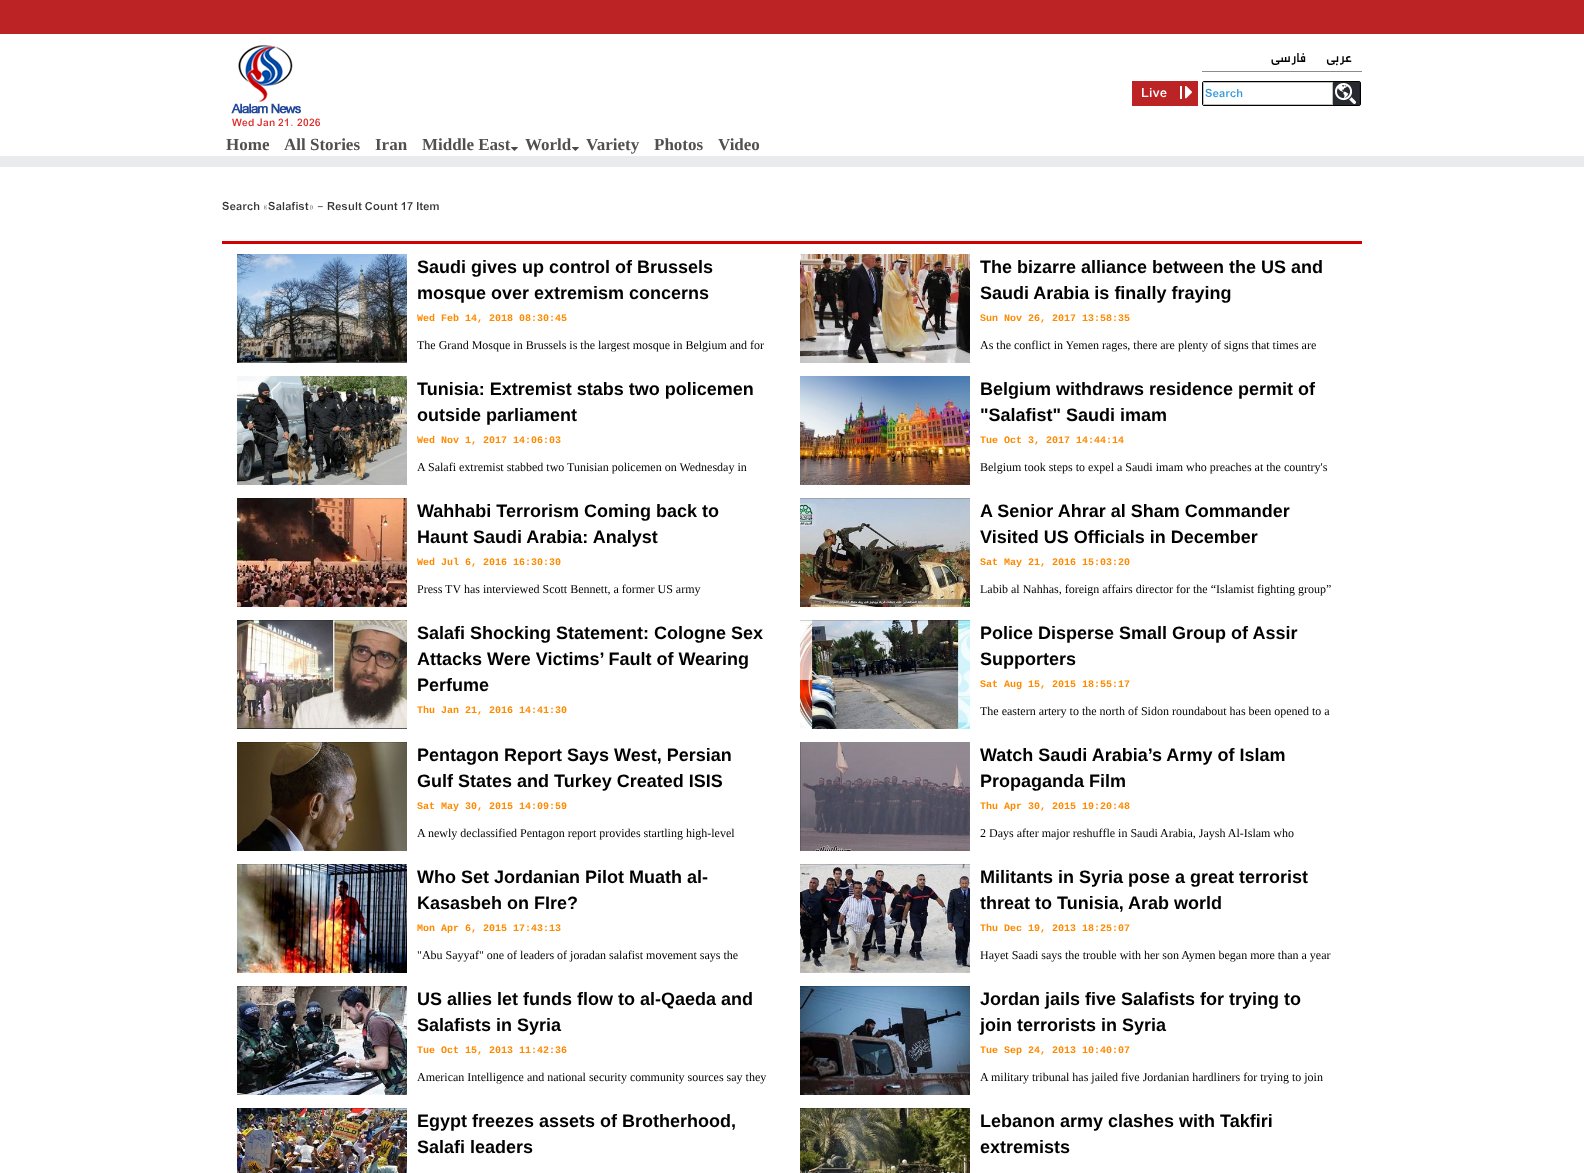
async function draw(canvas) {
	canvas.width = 1584;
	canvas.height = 1173;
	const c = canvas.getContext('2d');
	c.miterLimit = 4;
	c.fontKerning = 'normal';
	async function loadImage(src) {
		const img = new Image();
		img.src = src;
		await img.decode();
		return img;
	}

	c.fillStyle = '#fff';
	c.fillRect(0, 0, 1584, 1173);
	for (const [x, y, w, h, color] of [
		[0, 156, 1584, 11, '#e9ebec'],
		[0, 0, 1584, 34, '#bc2325'],
		[1202, 71, 160, 1, '#8c8c8c'],
	]) {
		c.fillStyle = color;
		c.fillRect(x, y, w, h);
	}
	c.direction = 'rtl';
	c.font = '300 16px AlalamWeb';
	c.fillStyle = '#000';
	c.fillText('فارسی', 1306, 62);
	c.fillText('عربی', 1352, 62);
	c.fillStyle = '#bc2325';
	c.fillRect(1132, 81, 66, 25);
	c.direction = 'ltr';
	c.fillStyle = '#fff';
	c.fillText('Live', 1141, 97);
	c.fillRect(1180, 86, 2, 13);
	c.drawImage(await loadImage('img1.png'), 1185, 86, 7, 13);
	c.beginPath();
	c.roundRect(1202.5, 81.5, 158, 24, 1.5);
	c.strokeStyle = '#000';
	c.stroke();
	c.strokeStyle = '#c0c0c0';
	c.strokeRect(1203.5, 82.5, 129, 22);
	c.font = '300 14px AlalamWeb';
	c.fillStyle = '#3498db';
	c.fillText('Search', 1205, 97);
	c.drawImage(await loadImage('img2.png'), 1333, 82, 27, 23);
	c.drawImage(await loadImage('img3.png'), 231, 44, 70, 70);
	c.font = '300 13px AlalamWeb';
	c.fillStyle = '#dd2e2e';
	c.fillText('Wed Jan 21, 2026', 232, 126);
	c.font = 'bold 17px Liberation Serif';
	c.fillStyle = '#505050';
	for (const [text, x, y] of [
		['Home', 226, 150],
		['All Stories', 284, 150],
		['Iran', 375, 150],
		['Middle East', 422, 150],
	]) {
		c.fillText(text, x, y);
	}
	c.drawImage(await loadImage('img4.png'), 511, 147, 7, 4);
	c.fillText('World', 525, 150);
	c.drawImage(await loadImage('img4.png'), 572, 147, 7, 4);
	for (const [text, x, y] of [
		['Variety', 586, 150],
		['Photos', 654, 150],
		['Video', 718, 150],
	]) {
		c.fillText(text, x, y);
	}
	c.font = '300 14px AlalamWeb';
	c.fillStyle = '#333';
	c.fillText('Search «Salafist» - Result Count 17 Item', 222, 210);
	c.fillStyle = '#d20000';
	c.fillRect(222, 241, 1140, 3);
	c.drawImage(await loadImage('img5.png'), 237, 254, 170, 109);
	c.font = 'bold 18px Liberation Sans';
	c.fillStyle = '#000';
	c.fillText('Saudi gives up control of Brussels', 417, 273);
	c.fillText('mosque over extremism concerns', 417, 299);
	c.font = 'bold 10px Liberation Mono';
	c.fillStyle = '#ff8a00';
	c.fillText('Wed Feb 14, 2018 08:30:45', 417, 321);
	c.font = '12px Liberation Serif';
	c.fillStyle = '#000';
	c.fillText('The Grand Mosque in Brussels is the largest mosque in Belgium and for', 417, 349);
	c.drawImage(await loadImage('img6.png'), 800, 254, 170, 109);
	c.font = 'bold 18px Liberation Sans';
	c.fillText('The bizarre alliance between the US and', 980, 273);
	c.fillText('Saudi Arabia is finally fraying', 980, 299);
	c.font = 'bold 10px Liberation Mono';
	c.fillStyle = '#ff8a00';
	c.fillText('Sun Nov 26, 2017 13:58:35', 980, 321);
	c.font = '12px Liberation Serif';
	c.fillStyle = '#000';
	c.fillText('As the conflict in Yemen rages, there are plenty of signs that times are', 980, 349);
	c.drawImage(await loadImage('img7.png'), 237, 376, 170, 109);
	c.font = 'bold 18px Liberation Sans';
	c.fillText('Tunisia: Extremist stabs two policemen', 417, 395);
	c.fillText('outside parliament', 417, 421);
	c.font = 'bold 10px Liberation Mono';
	c.fillStyle = '#ff8a00';
	c.fillText('Wed Nov 1, 2017 14:06:03', 417, 443);
	c.font = '12px Liberation Serif';
	c.fillStyle = '#000';
	c.fillText('A Salafi extremist stabbed two Tunisian policemen on Wednesday in', 417, 471);
	c.drawImage(await loadImage('img8.png'), 800, 376, 170, 109);
	c.font = 'bold 18px Liberation Sans';
	c.fillText('Belgium withdraws residence permit of', 980, 395);
	c.fillText('"Salafist" Saudi imam', 980, 421);
	c.font = 'bold 10px Liberation Mono';
	c.fillStyle = '#ff8a00';
	c.fillText('Tue Oct 3, 2017 14:44:14', 980, 443);
	c.font = '12px Liberation Serif';
	c.fillStyle = '#000';
	c.fillText('Belgium took steps to expel a Saudi imam who preaches at the country\'s', 980, 471);
	c.drawImage(await loadImage('img9.png'), 237, 498, 170, 109);
	c.font = 'bold 18px Liberation Sans';
	c.fillText('Wahhabi Terrorism Coming back to', 417, 517);
	c.fillText('Haunt Saudi Arabia: Analyst', 417, 543);
	c.font = 'bold 10px Liberation Mono';
	c.fillStyle = '#ff8a00';
	c.fillText('Wed Jul 6, 2016 16:30:30', 417, 565);
	c.font = '12px Liberation Serif';
	c.fillStyle = '#000';
	c.fillText('Press TV has interviewed Scott Bennett, a former US army', 417, 593);
	c.drawImage(await loadImage('img10.png'), 800, 498, 170, 109);
	c.font = 'bold 18px Liberation Sans';
	c.fillText('A Senior Ahrar al Sham Commander', 980, 517);
	c.fillText('Visited US Officials in December', 980, 543);
	c.font = 'bold 10px Liberation Mono';
	c.fillStyle = '#ff8a00';
	c.fillText('Sat May 21, 2016 15:03:20', 980, 565);
	c.font = '12px Liberation Serif';
	c.fillStyle = '#000';
	c.fillText('Labib al Nahhas, foreign affairs director for the “Islamist fighting group”', 980, 593);
	c.drawImage(await loadImage('img11.png'), 237, 620, 170, 109);
	c.font = 'bold 18px Liberation Sans';
	for (const [text, x, y] of [
		['Salafi Shocking Statement: Cologne Sex', 417, 639],
		['Attacks Were Victims’ Fault of Wearing', 417, 665],
		['Perfume', 417, 691],
	]) {
		c.fillText(text, x, y);
	}
	c.font = 'bold 10px Liberation Mono';
	c.fillStyle = '#ff8a00';
	c.fillText('Thu Jan 21, 2016 14:41:30', 417, 713);
	c.drawImage(await loadImage('img12.png'), 800, 620, 170, 109);
	c.font = 'bold 18px Liberation Sans';
	c.fillStyle = '#000';
	c.fillText('Police Disperse Small Group of Assir', 980, 639);
	c.fillText('Supporters', 980, 665);
	c.font = 'bold 10px Liberation Mono';
	c.fillStyle = '#ff8a00';
	c.fillText('Sat Aug 15, 2015 18:55:17', 980, 687);
	c.font = '12px Liberation Serif';
	c.fillStyle = '#000';
	c.fillText('The eastern artery to the north of Sidon roundabout has been opened to a', 980, 715);
	c.drawImage(await loadImage('img13.png'), 237, 742, 170, 109);
	c.font = 'bold 18px Liberation Sans';
	c.fillText('Pentagon Report Says West, Persian', 417, 761);
	c.fillText('Gulf States and Turkey Created ISIS', 417, 787);
	c.font = 'bold 10px Liberation Mono';
	c.fillStyle = '#ff8a00';
	c.fillText('Sat May 30, 2015 14:09:59', 417, 809);
	c.font = '12px Liberation Serif';
	c.fillStyle = '#000';
	c.fillText('A newly declassified Pentagon report provides startling high-level', 417, 837);
	c.drawImage(await loadImage('img14.png'), 800, 742, 170, 109);
	c.font = 'bold 18px Liberation Sans';
	c.fillText('Watch Saudi Arabia’s Army of Islam', 980, 761);
	c.fillText('Propaganda Film', 980, 787);
	c.font = 'bold 10px Liberation Mono';
	c.fillStyle = '#ff8a00';
	c.fillText('Thu Apr 30, 2015 19:20:48', 980, 809);
	c.font = '12px Liberation Serif';
	c.fillStyle = '#000';
	c.fillText('2 Days after major reshuffle in Saudi Arabia, Jaysh Al-Islam who', 980, 837);
	c.drawImage(await loadImage('img15.png'), 237, 864, 170, 109);
	c.font = 'bold 18px Liberation Sans';
	c.fillText('Who Set Jordanian Pilot Muath al-', 417, 883);
	c.fillText('Kasasbeh on FIre?', 417, 909);
	c.font = 'bold 10px Liberation Mono';
	c.fillStyle = '#ff8a00';
	c.fillText('Mon Apr 6, 2015 17:43:13', 417, 931);
	c.font = '12px Liberation Serif';
	c.fillStyle = '#000';
	c.fillText('"Abu Sayyaf" one of leaders of joradan salafist movement says the', 417, 959);
	c.drawImage(await loadImage('img16.png'), 800, 864, 170, 109);
	c.font = 'bold 18px Liberation Sans';
	c.fillText('Militants in Syria pose a great terrorist', 980, 883);
	c.fillText('threat to Tunisia, Arab world', 980, 909);
	c.font = 'bold 10px Liberation Mono';
	c.fillStyle = '#ff8a00';
	c.fillText('Thu Dec 19, 2013 18:25:07', 980, 931);
	c.font = '12px Liberation Serif';
	c.fillStyle = '#000';
	c.fillText('Hayet Saadi says the trouble with her son Aymen began more than a year', 980, 959);
	c.drawImage(await loadImage('img17.png'), 237, 986, 170, 109);
	c.font = 'bold 18px Liberation Sans';
	c.fillText('US allies let funds flow to al-Qaeda and', 417, 1005);
	c.fillText('Salafists in Syria', 417, 1031);
	c.font = 'bold 10px Liberation Mono';
	c.fillStyle = '#ff8a00';
	c.fillText('Tue Oct 15, 2013 11:42:36', 417, 1053);
	c.font = '12px Liberation Serif';
	c.fillStyle = '#000';
	c.fillText('American Intelligence and national security community sources say they', 417, 1081);
	c.drawImage(await loadImage('img18.png'), 800, 986, 170, 109);
	c.font = 'bold 18px Liberation Sans';
	c.fillText('Jordan jails five Salafists for trying to', 980, 1005);
	c.fillText('join terrorists in Syria', 980, 1031);
	c.font = 'bold 10px Liberation Mono';
	c.fillStyle = '#ff8a00';
	c.fillText('Tue Sep 24, 2013 10:40:07', 980, 1053);
	c.font = '12px Liberation Serif';
	c.fillStyle = '#000';
	c.fillText('A military tribunal has jailed five Jordanian hardliners for trying to join', 980, 1081);
	c.drawImage(await loadImage('img19.png'), 237, 1108, 170, 65);
	c.font = 'bold 18px Liberation Sans';
	c.fillText('Egypt freezes assets of Brotherhood,', 417, 1127);
	c.fillText('Salafi leaders', 417, 1153);
	c.drawImage(await loadImage('img20.png'), 800, 1108, 170, 65);
	c.fillText('Lebanon army clashes with Takfiri', 980, 1127);
	c.fillText('extremists', 980, 1153);
}

draw(document.querySelector('canvas'));
